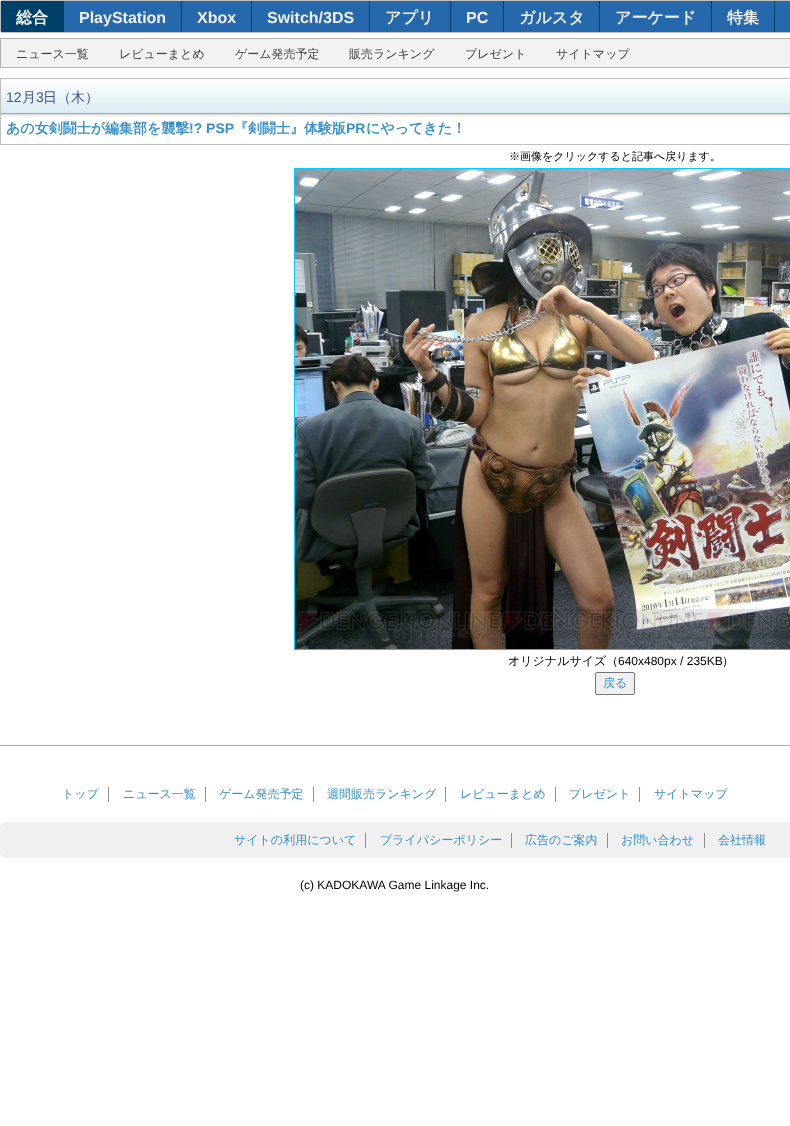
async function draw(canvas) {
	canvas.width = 790;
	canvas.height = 1126;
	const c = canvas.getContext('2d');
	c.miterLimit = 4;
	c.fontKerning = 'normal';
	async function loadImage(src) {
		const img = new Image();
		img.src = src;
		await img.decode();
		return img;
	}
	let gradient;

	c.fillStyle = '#fff';
	c.fillRect(0, 0, 790, 1126);
	c.fillStyle = '#a7a7a7';
	c.fillRect(0, 745, 790, 1);
	c.fillStyle = '#2568ab';
	c.beginPath();
	c.roundRect(0.5, 0.5, 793, 32, 2.5);
	c.fill();
	c.strokeStyle = '#c0c0c0';
	c.stroke();
	c.fillStyle = '#00416b';
	c.fillRect(1, 1, 63, 31);
	c.font = 'bold 16px WenQuanYi Zen Hei';
	c.fillStyle = '#fff';
	c.fillText('総合', 16, 23);
	c.fillStyle = '#00416b';
	c.fillRect(181, 1, 1, 31);
	c.font = 'bold 16px Liberation Sans';
	c.fillStyle = '#f0f0f0';
	c.fillText('PlayStation', 79, 23);
	c.fillStyle = '#00416b';
	c.fillRect(251, 1, 1, 31);
	c.fillStyle = '#f0f0f0';
	c.fillText('Xbox', 197, 23);
	c.fillStyle = '#00416b';
	c.fillRect(369, 1, 1, 31);
	c.fillStyle = '#f0f0f0';
	c.fillText('Switch/3DS', 267, 23);
	c.fillStyle = '#00416b';
	c.fillRect(450, 1, 1, 31);
	c.font = 'bold 16px WenQuanYi Zen Hei';
	c.fillStyle = '#f0f0f0';
	c.fillText('アプリ', 385, 23);
	c.fillStyle = '#00416b';
	c.fillRect(503, 1, 1, 31);
	c.font = 'bold 16px Liberation Sans';
	c.fillStyle = '#f0f0f0';
	c.fillText('PC', 466, 23);
	c.fillStyle = '#00416b';
	c.fillRect(599, 1, 1, 31);
	c.font = 'bold 16px WenQuanYi Zen Hei';
	c.fillStyle = '#f0f0f0';
	c.fillText('ガルスタ', 519, 23);
	c.fillStyle = '#00416b';
	c.fillRect(711, 1, 1, 31);
	c.fillStyle = '#f0f0f0';
	c.fillText('アーケード', 615, 23);
	c.fillStyle = '#00416b';
	c.fillRect(774, 1, 1, 31);
	c.fillStyle = '#f0f0f0';
	c.fillText('特集', 727, 23);
	c.fillStyle = '#f2f2f2';
	c.beginPath();
	c.rect(0.5, 38.5, 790, 29);
	c.fill();
	c.strokeStyle = '#b0b0b0';
	c.stroke();
	c.font = '500 12px WenQuanYi Zen Hei';
	c.fillStyle = '#404040';
	for (const [text, x, y] of [
		['ニュース一覧', 16, 58],
		['レビューまとめ', 119, 58],
		['ゲーム発売予定', 235, 58],
		['販売ランキング', 349, 58],
		['プレゼント', 465, 58],
		['サイトマップ', 556, 58],
	]) {
		c.fillText(text, x, y);
	}
	c.fillStyle = '#e0e0e0';
	c.filter = 'blur(1px)';
	c.beginPath();
	c.rect(0, 80, 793, 36);
	c.fill();
	c.filter = 'none';
	gradient = c.createLinearGradient(1, 79, 1, 113);
	gradient.addColorStop(0, '#fefeff');
	gradient.addColorStop(1, '#daebf1');
	c.fillStyle = gradient;
	c.fillRect(1, 79, 789, 34);
	for (const [x, y, w, h, color] of [
		[0, 78, 790, 1, '#c0c0c0'],
		[0, 113, 790, 1, '#97a8b7'],
		[0, 78, 1, 36, '#c0c0c0'],
	]) {
		c.fillStyle = color;
		c.fillRect(x, y, w, h);
	}
	c.font = '14px Liberation Sans';
	c.fillStyle = '#3e578d';
	c.fillText('12', 6, 102);
	c.font = '500 14px WenQuanYi Zen Hei';
	c.fillText('月', 22, 102);
	c.font = '14px Liberation Sans';
	c.fillText('3', 36, 102);
	c.font = '500 14px WenQuanYi Zen Hei';
	c.fillText('日（木）', 43, 102);
	c.fillStyle = '#c0c0c0';
	c.fillRect(0, 144, 790, 1);
	c.fillRect(0, 114, 1, 31);
	c.font = 'bold 14px WenQuanYi Zen Hei';
	c.fillStyle = '#3890ca';
	c.fillText('あの女剣闘士が編集部を襲撃', 6, 133);
	c.font = 'bold 14px Liberation Sans';
	c.fillText('!? PSP', 189, 133);
	c.font = 'bold 14px WenQuanYi Zen Hei';
	c.fillText('『剣闘士』体験版', 234, 133);
	c.font = 'bold 14px Liberation Sans';
	c.fillText('PR', 346, 133);
	c.font = 'bold 14px WenQuanYi Zen Hei';
	c.fillText('にやってきた！', 366, 133);
	c.font = '500 11px WenQuanYi Zen Hei';
	c.fillStyle = '#000';
	c.fillText('※画像をクリックすると記事へ戻ります。', 509, 160);
	c.strokeStyle = '#0cf';
	c.strokeRect(294.5, 168.5, 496, 481);
	c.drawImage(await loadImage('img1.png'), 295, 169, 495, 480);
	c.font = '500 12px WenQuanYi Zen Hei';
	c.fillText('オリジナルサイズ（', 508, 665);
	c.font = '12px Liberation Sans';
	c.fillText('640x480px / 235KB', 618, 665);
	c.font = '500 12px WenQuanYi Zen Hei';
	c.fillText('）', 722, 665);
	c.fillStyle = '#efefef';
	c.beginPath();
	c.roundRect(595.5, 672.5, 39, 22, 1.5);
	c.fill();
	c.strokeStyle = '#767676';
	c.stroke();
	c.fillStyle = '#3890ca';
	c.fillText('戻る', 603, 687);
	c.fillStyle = '#909090';
	c.fillRect(108, 787, 1, 15);
	c.fillStyle = '#3890ca';
	c.fillText('トップ', 62, 798);
	c.fillStyle = '#909090';
	c.fillRect(205, 787, 1, 15);
	c.fillStyle = '#3890ca';
	c.fillText('ニュース一覧', 123, 798);
	c.fillStyle = '#909090';
	c.fillRect(313, 787, 1, 15);
	c.fillStyle = '#3890ca';
	c.fillText('ゲーム発売予定', 219, 798);
	c.fillStyle = '#909090';
	c.fillRect(445, 787, 1, 15);
	c.fillStyle = '#3890ca';
	c.fillText('週間販売ランキング', 327, 798);
	c.fillStyle = '#909090';
	c.fillRect(555, 787, 1, 15);
	c.fillStyle = '#3890ca';
	c.fillText('レビューまとめ', 460, 798);
	c.fillStyle = '#909090';
	c.fillRect(639, 787, 1, 15);
	c.fillStyle = '#3890ca';
	c.fillText('プレゼント', 569, 798);
	c.fillText('サイトマップ', 654, 798);
	c.fillStyle = '#f0f0f0';
	c.beginPath();
	c.roundRect(0, 822, 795, 36, 5);
	c.fill();
	c.fillStyle = '#909090';
	c.fillRect(365, 833, 1, 15);
	c.fillStyle = '#3890ca';
	c.fillText('サイトの利用について', 234, 844);
	c.fillStyle = '#909090';
	c.fillRect(511, 833, 1, 15);
	c.fillStyle = '#3890ca';
	c.fillText('プライバシーポリシー', 380, 844);
	c.fillStyle = '#909090';
	c.fillRect(607, 833, 1, 15);
	c.fillStyle = '#3890ca';
	c.fillText('広告のご案内', 525, 844);
	c.fillStyle = '#909090';
	c.fillRect(704, 833, 1, 15);
	c.fillStyle = '#3890ca';
	c.fillText('お問い合わせ', 621, 844);
	c.fillText('会社情報', 718, 844);
	c.font = '12px Liberation Sans';
	c.fillStyle = '#000';
	c.fillText('(c) KADOKAWA Game Linkage Inc.', 300, 889);
}

draw(document.querySelector('canvas'));
